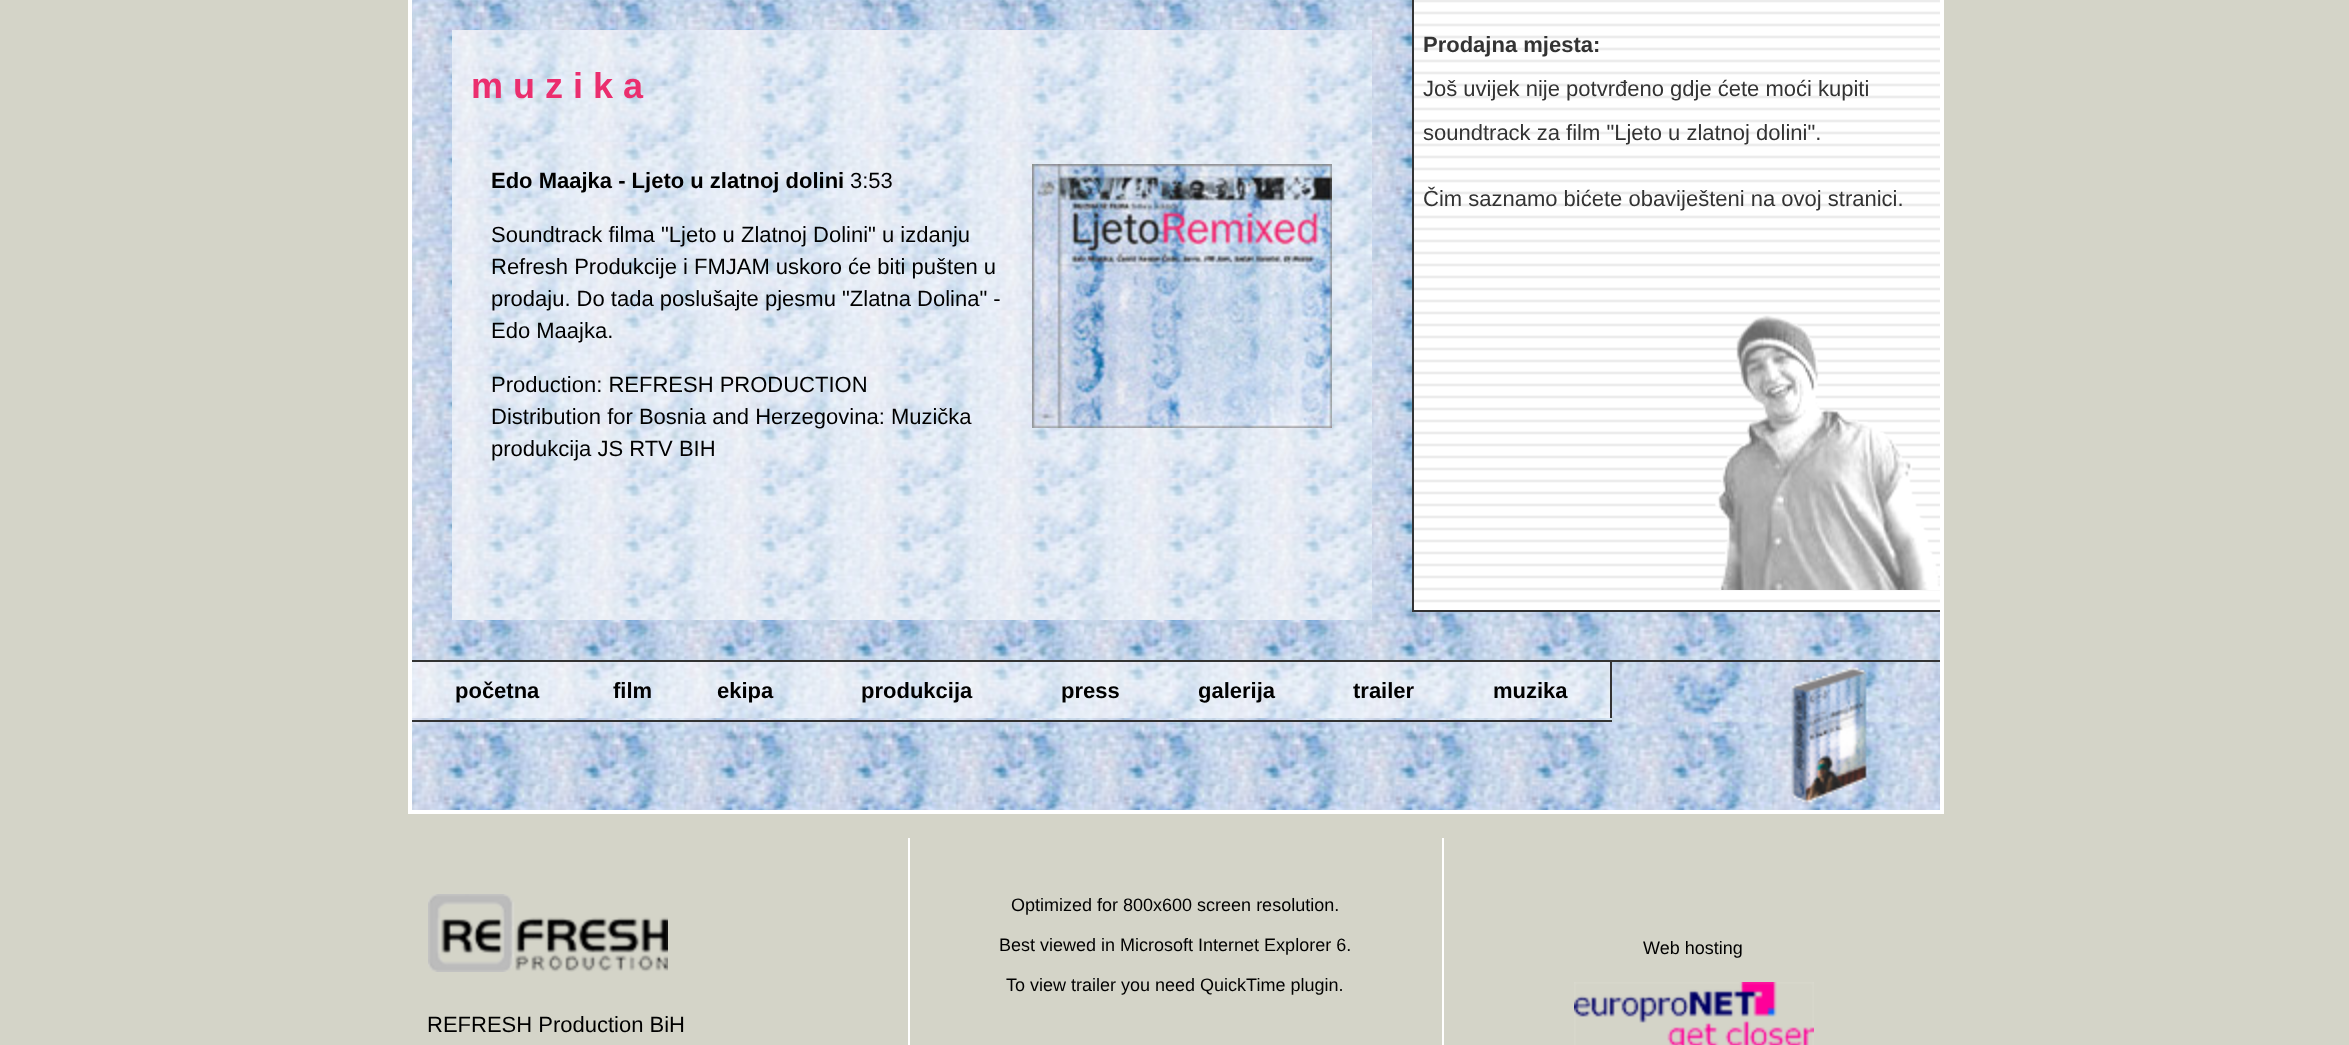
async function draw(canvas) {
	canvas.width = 2349;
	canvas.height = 1045;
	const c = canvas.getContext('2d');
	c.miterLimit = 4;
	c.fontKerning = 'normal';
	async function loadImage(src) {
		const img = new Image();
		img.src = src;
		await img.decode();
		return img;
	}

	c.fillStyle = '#d4d4c8';
	c.fillRect(0, 0, 2349, 1045);
	c.drawImage(await loadImage('img1.png'), 412, 0, 1528, 810);
	c.strokeStyle = '#fff';
	c.lineWidth = 4;
	c.strokeRect(410, -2, 1532, 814);
	c.drawImage(await loadImage('img2.png'), 452, 30, 920, 590);
	c.letterSpacing = '10px';
	c.font = 'bold 36px Liberation Sans';
	c.fillStyle = '#eb2e6e';
	c.fillText('muzika', 471, 98);
	c.letterSpacing = '0px';
	c.font = 'bold 22px Liberation Sans';
	c.fillStyle = '#000';
	c.fillText('Edo Maajka - Ljeto u zlatnoj dolini', 491, 188);
	c.font = '22px Liberation Sans';
	c.fillText('3:53', 850, 188);
	c.drawImage(await loadImage('img3.png'), 1032, 164, 300, 264);
	for (const [text, x, y] of [
		['Soundtrack filma "Ljeto u Zlatnoj Dolini" u izdanju', 491, 242],
		['Refresh Produkcije i FMJAM uskoro će biti pušten u', 491, 274],
		['prodaju. Do tada poslušajte pjesmu "Zlatna Dolina" -', 491, 306],
		['Edo Maajka.', 491, 338],
		['Production: REFRESH PRODUCTION', 491, 392],
		['Distribution for Bosnia and Herzegovina: Muzička', 491, 424],
		['produkcija JS RTV BIH', 491, 456],
	]) {
		c.fillText(text, x, y);
	}
	c.drawImage(await loadImage('img4.png'), 1414, 0, 526, 610);
	c.drawImage(await loadImage('img5.png'), 1715, 315, 225, 275);
	c.fillStyle = '#333';
	c.fillRect(1412, 610, 528, 2);
	c.fillRect(1412, 0, 2, 612);
	c.font = 'bold 22px Liberation Sans';
	c.fillText('Prodajna mjesta:', 1423, 52);
	c.font = '22px Liberation Sans';
	for (const [text, x, y] of [
		['Još uvijek nije potvrđeno gdje ćete moći kupiti', 1423, 96],
		['soundtrack za film "Ljeto u zlatnoj dolini".', 1423, 140],
		['Čim saznamo bićete obaviješteni na ovoj stranici.', 1423, 206],
	]) {
		c.fillText(text, x, y);
	}
	c.fillRect(412, 660, 1528, 2);
	c.drawImage(await loadImage('img6.png'), 412, 662, 1198, 56);
	c.font = 'bold 22px Liberation Sans';
	c.fillStyle = '#000';
	for (const [text, x, y] of [
		['početna', 455, 698],
		['film', 613, 698],
		['ekipa', 717, 698],
		['produkcija', 861, 698],
		['press', 1061, 698],
		['galerija', 1198, 698],
		['trailer', 1353, 698],
	]) {
		c.fillText(text, x, y);
	}
	c.fillStyle = '#333';
	c.fillRect(1610, 662, 2, 56);
	c.fillStyle = '#000';
	c.fillText('muzika', 1493, 698);
	c.drawImage(await loadImage('img7.png'), 1791, 667, 76, 136);
	c.fillStyle = '#333';
	c.fillRect(412, 720, 1200, 2);
	c.fillStyle = '#fff';
	c.fillRect(1442, 838, 2, 207);
	c.font = '18px Liberation Sans';
	c.fillStyle = '#000';
	for (const [text, x, y] of [
		['Optimized for 800x600 screen resolution.', 1011, 911],
		['Best viewed in Microsoft Internet Explorer 6.', 999, 951],
		['To view trailer you need QuickTime plugin.', 1006, 991],
		['Web hosting', 1643, 954],
	]) {
		c.fillText(text, x, y);
	}
	c.drawImage(await loadImage('img8.png'), 1574, 982, 240, 63);
	c.fillStyle = '#fff';
	c.fillRect(908, 838, 2, 207);
	c.drawImage(await loadImage('img9.png'), 428, 894, 240, 78);
	c.font = '22px Liberation Sans';
	c.fillStyle = '#000';
	c.fillText('REFRESH Production BiH', 427, 1032);
}

draw(document.querySelector('canvas'));
